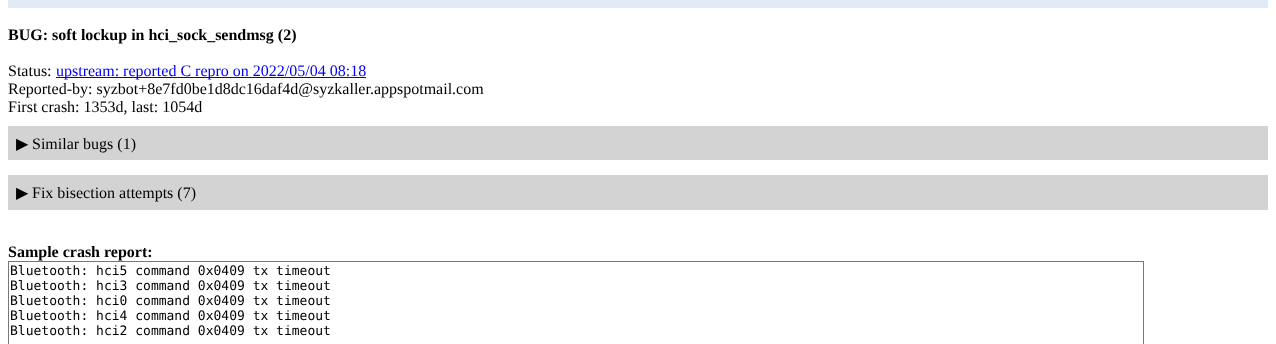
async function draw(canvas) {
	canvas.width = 1276;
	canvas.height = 344;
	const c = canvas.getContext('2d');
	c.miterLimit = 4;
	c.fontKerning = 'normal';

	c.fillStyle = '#fff';
	c.fillRect(0, 0, 1276, 344);
	c.fillStyle = '#e0ebf5';
	c.fillRect(8, 0, 1260, 8);
	c.font = 'bold 16px Liberation Serif';
	c.fillStyle = '#000';
	c.fillText('BUG: soft lockup in hci_sock_sendmsg (2)', 8, 40);
	c.font = '16px Liberation Serif';
	c.fillText('Status:', 8, 76);
	c.fillStyle = '#00e';
	c.fillRect(56, 77, 310, 1);
	c.fillText('upstream: reported C repro on 2022/05/04 08:18', 56, 76);
	c.fillStyle = '#000';
	c.fillText('Reported-by: syzbot+8e7fd0be1d8dc16daf4d@syzkaller.appspotmail.com', 8, 94);
	c.fillText('First crash: 1353d, last: 1054d', 8, 112);
	c.strokeStyle = '#d3d3d3';
	c.strokeRect(8.5, 126.5, 1259, 33);
	c.fillStyle = '#d3d3d3';
	c.fillRect(9, 127, 1258, 32);
	c.font = '16px DejaVu Sans';
	c.fillStyle = '#000';
	c.fillText('▶', 16, 149);
	c.font = '16px Liberation Serif';
	c.fillText('Similar bugs (1)', 32, 149);
	c.strokeRect(8.5, 175.5, 1259, 34);
	c.fillStyle = '#d3d3d3';
	c.fillRect(9, 176, 1258, 33);
	c.font = '16px DejaVu Sans';
	c.fillStyle = '#000';
	c.fillText('▶', 16, 198);
	c.font = '16px Liberation Serif';
	c.fillText('Fix bisection attempts (7)', 32, 198);
	c.font = 'bold 16px Liberation Serif';
	c.fillText('Sample crash report:', 8, 257);
	c.strokeStyle = '#777';
	c.strokeRect(8.5, 261.5, 1135, 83);
	c.font = '13px DejaVu Sans Mono';
	for (const [text, x, y] of [
		['Bluetooth: hci5 command 0x0409 tx timeout', 10, 275],
		['Bluetooth: hci3 command 0x0409 tx timeout', 10, 290],
		['Bluetooth: hci0 command 0x0409 tx timeout', 10, 305],
		['Bluetooth: hci4 command 0x0409 tx timeout', 10, 320],
		['Bluetooth: hci2 command 0x0409 tx timeout', 10, 335],
	]) {
		c.fillText(text, x, y);
	}
}

draw(document.querySelector('canvas'));
